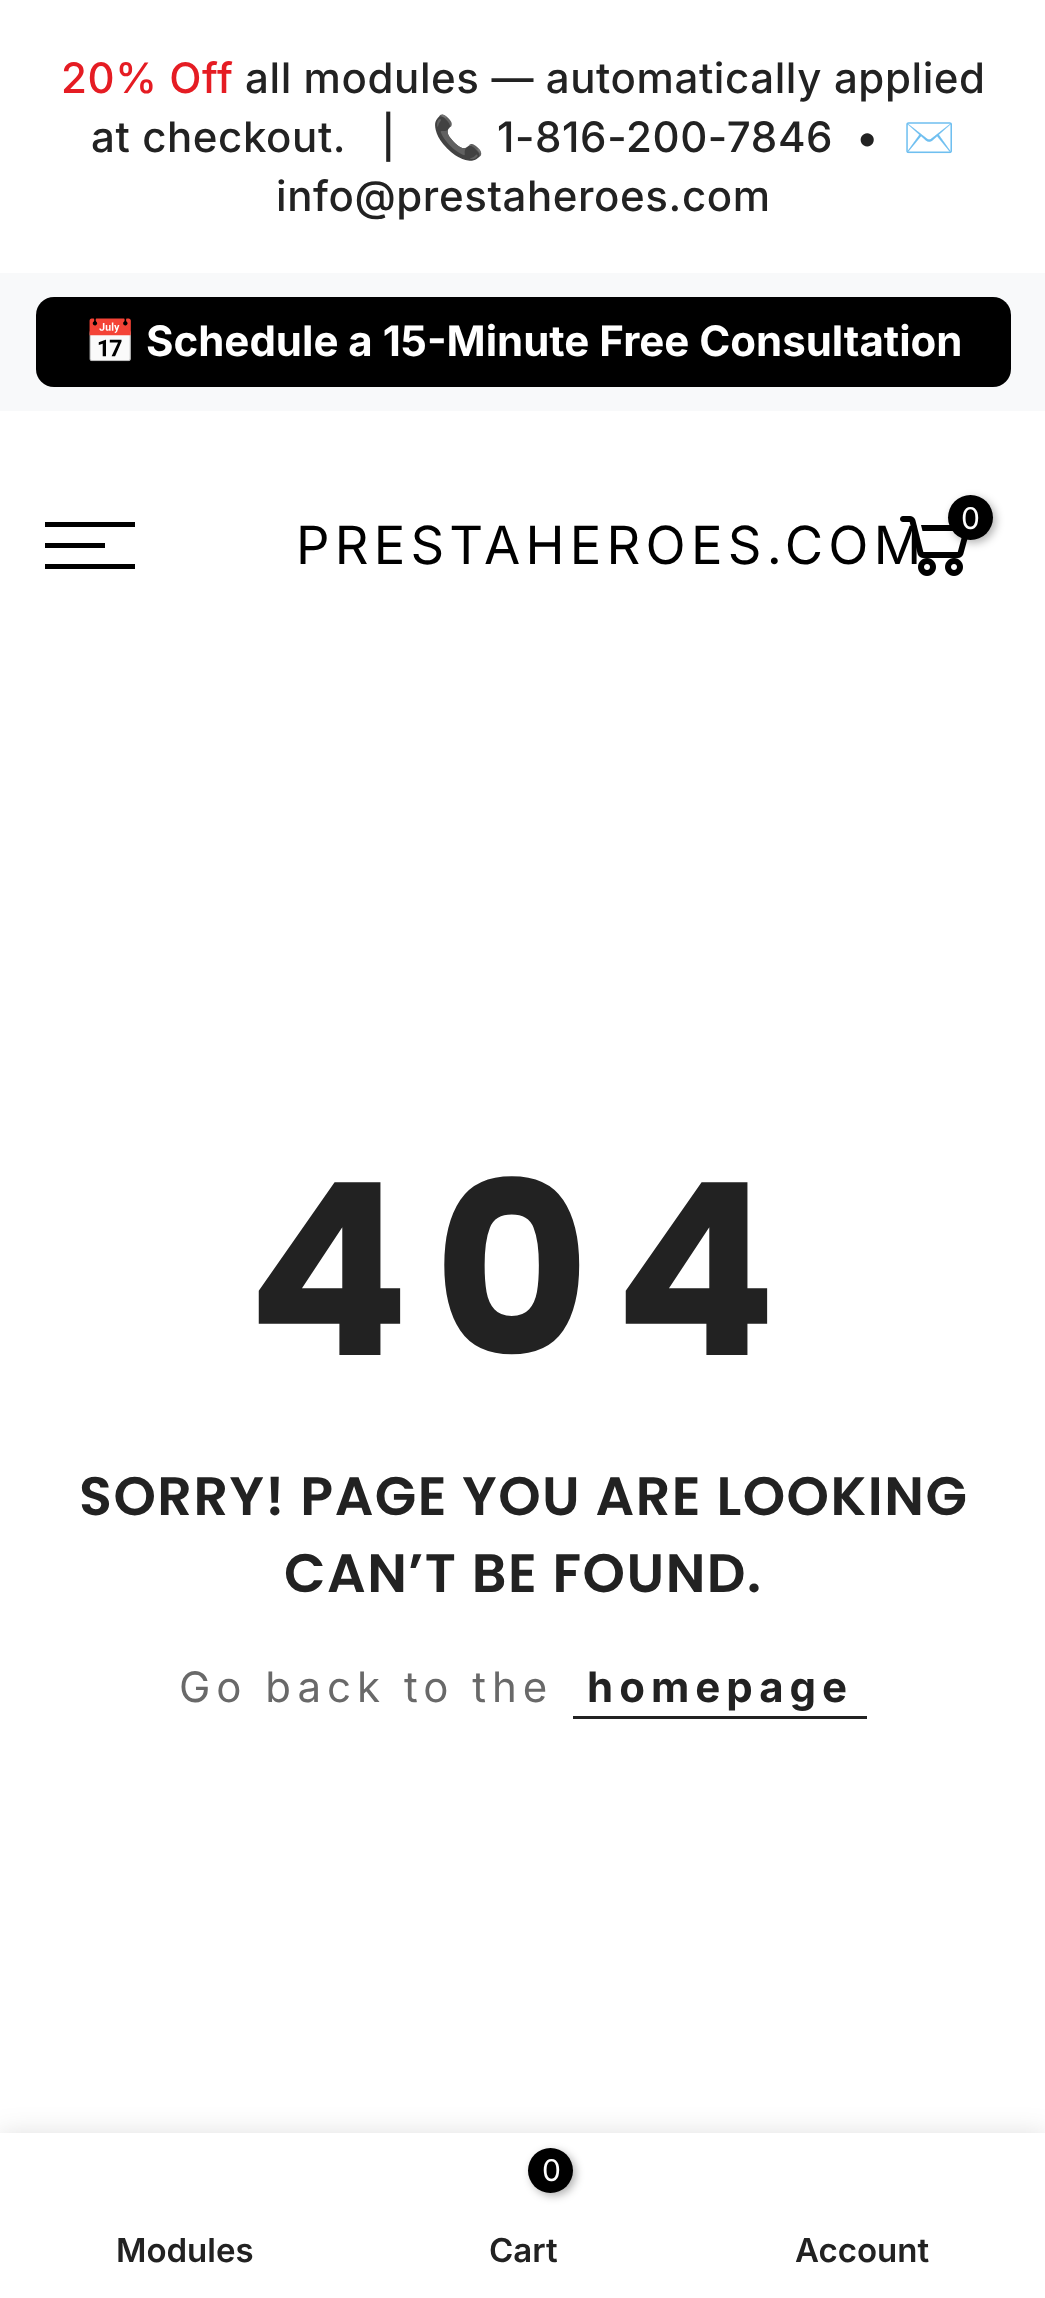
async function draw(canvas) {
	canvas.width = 1045;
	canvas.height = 2298;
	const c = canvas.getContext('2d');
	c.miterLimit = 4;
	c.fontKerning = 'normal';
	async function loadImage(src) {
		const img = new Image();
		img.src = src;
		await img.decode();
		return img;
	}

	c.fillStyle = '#fff';
	c.fillRect(0, 0, 1045, 2298);
	c.letterSpacing = '0.6px';
	c.font = '500 42px Inter';
	c.fillStyle = '#e51c23';
	c.fillText('20% Off', 61, 93);
	c.fillStyle = '#222';
	for (const [text, x, y] of [
		['all modules — automatically applied', 245, 93],
		['at checkout.', 91, 152],
		['|', 381, 152],
	]) {
		c.fillText(text, x, y);
	}
	c.font = '42px Noto Color Emoji';
	c.fillText('📞', 432, 152);
	c.font = '500 42px Inter';
	c.fillText('1-816-200-7846', 497, 152);
	c.fillText('•', 856, 152);
	c.font = '42px Noto Color Emoji';
	c.fillText('✉️', 903, 152);
	c.font = '500 42px Inter';
	c.fillText('info@prestaheroes.com', 276, 211);
	c.fillStyle = '#f8f9fa';
	c.fillRect(0, 273, 1045, 138);
	c.fillStyle = '#000';
	c.beginPath();
	c.roundRect(36, 297, 975, 90, 18);
	c.fill();
	c.letterSpacing = '0px';
	c.font = 'bold 42px Noto Color Emoji';
	c.fillStyle = '#fff';
	c.fillText('📅', 84, 356);
	c.font = 'bold 42px Inter';
	c.fillText('Schedule a 15-Minute Free Consultation', 146, 356);
	c.letterSpacing = '5.25px';
	c.font = '52.5px Inter';
	c.fillStyle = '#000';
	c.fillText('PRESTAHEROES.COM', 296, 564);
	c.drawImage(await loadImage('img1.png'), 900, 516, 68, 60);
	c.fillStyle = '#0000004d';
	c.filter = 'blur(4.5px)';
	c.beginPath();
	c.roundRect(951, 498, 45, 45, 22.5);
	c.fill();
	c.filter = 'none';
	c.fillStyle = '#000';
	c.beginPath();
	c.arc(970.5, 517.5, 22.5, 0, 2 * Math.PI);
	c.fill();
	c.letterSpacing = '0px';
	c.font = '30px Inter';
	c.fillStyle = '#fff';
	c.fillText('0', 961, 529);
	for (const [x, y, w, h, color] of [
		[45, 522, 90, 5, '#000'],
		[45, 543, 60, 5, '#000'],
		[45, 564, 90, 5, '#000'],
	]) {
		c.fillStyle = color;
		c.fillRect(x, y, w, h);
	}
	c.letterSpacing = '24px';
	c.font = 'bold 240px Poppins';
	c.fillStyle = '#222';
	c.fillText('404', 247, 1355);
	c.letterSpacing = '1.5px';
	c.font = '600 54px Poppins';
	c.fillText('SORRY! PAGE YOU ARE LOOKING', 79, 1515);
	c.fillText('CAN’T BE FOUND.', 284, 1592);
	c.letterSpacing = '6px';
	c.font = '42px Inter';
	c.fillStyle = '#696969';
	c.fillText('Go back to the', 179, 1702);
	c.font = 'bold 42px Inter';
	c.fillStyle = '#222';
	c.fillText('homepage', 587, 1702);
	c.fillRect(573, 1716, 294, 3);
	c.fillStyle = '#0000001f';
	c.filter = 'blur(13.5px)';
	c.beginPath();
	c.rect(0, 2133, 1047, 165);
	c.fill();
	c.filter = 'none';
	c.fillStyle = '#fff';
	c.fillRect(0, 2133, 1045, 165);
	c.letterSpacing = '0px';
	c.font = '600 33px Inter';
	c.fillStyle = '#222';
	c.fillText('Modules', 116, 2262);
	c.fillStyle = '#0000004d';
	c.filter = 'blur(4.5px)';
	c.beginPath();
	c.roundRect(531, 2151, 45, 45, 22.5);
	c.fill();
	c.filter = 'none';
	c.fillStyle = '#000';
	c.beginPath();
	c.arc(550.5, 2170.5, 22.5, 0, 2 * Math.PI);
	c.fill();
	c.font = '30px Inter';
	c.fillStyle = '#fff';
	c.fillText('0', 542, 2181);
	c.font = '600 33px Inter';
	c.fillStyle = '#222';
	c.fillText('Cart', 489, 2262);
	c.fillText('Account', 795, 2262);
}

draw(document.querySelector('canvas'));
